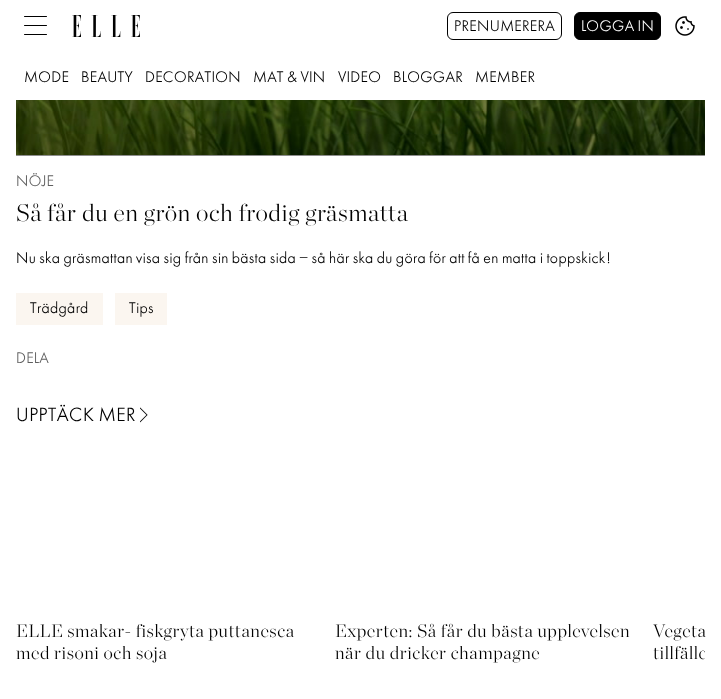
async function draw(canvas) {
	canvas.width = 721;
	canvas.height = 699;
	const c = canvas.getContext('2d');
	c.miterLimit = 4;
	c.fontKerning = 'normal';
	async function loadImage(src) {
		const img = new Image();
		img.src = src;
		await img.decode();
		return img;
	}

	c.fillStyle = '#fff';
	c.fillRect(0, 0, 721, 699);
	c.fillStyle = '#000';
	c.beginPath();
	c.roundRect(24, 16, 23, 1, 0.5);
	c.fill();
	c.beginPath();
	c.roundRect(24, 25, 23, 1, 0.5);
	c.fill();
	c.beginPath();
	c.roundRect(24, 34, 23, 1, 0.5);
	c.fill();
	c.drawImage(await loadImage('img1.png'), 72, 15, 68, 22);
	c.beginPath();
	c.roundRect(447.5, 12.5, 114, 27, 5.5);
	c.strokeStyle = '#000';
	c.stroke();
	c.letterSpacing = '0.3px';
	c.font = '16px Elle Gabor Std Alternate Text';
	c.fillText('PRENUMERERA', 454, 31);
	c.beginPath();
	c.roundRect(574.5, 12.5, 86, 27, 5.5);
	c.fill();
	c.stroke();
	c.fillStyle = '#fff';
	c.fillText('LOGGA IN', 581, 31);
	c.drawImage(await loadImage('img2.png'), 675, 16, 20, 20);
	c.fillStyle = '#000';
	for (const [text, x, y] of [
		['MODE', 24, 82],
		['BEAUTY', 81, 82],
		['DECORATION', 145, 82],
		['MAT & VIN', 253, 82],
		['VIDEO', 338, 82],
		['BLOGGAR', 393, 82],
		['MEMBER', 475, 82],
	]) {
		c.fillText(text, x, y);
	}
	c.fillStyle = '#8d8d8d';
	c.fillRect(16, 155, 689, 1);
	c.drawImage(await loadImage('img3.png'), 16, 100, 689, 55);
	c.fillStyle = '#5f5f5f';
	c.fillText('NÖJE', 16, 186);
	c.letterSpacing = '0.5px';
	c.font = '300 24px "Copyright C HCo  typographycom"';
	c.fillStyle = '#000';
	c.fillText('Så får du en grön och frodig gräsmatta', 16, 221);
	c.letterSpacing = '0.3px';
	c.font = '16px Elle Gabor Std Alternate Text';
	c.fillText('Nu ska gräsmattan visa sig från sin bästa sida – så här ska du göra för att få en matta i toppskick!', 16, 263);
	c.fillStyle = '#fbf6f0';
	c.fillRect(16, 293, 87, 32);
	c.fillStyle = '#000';
	c.fillText('Trädgård', 30, 313);
	c.fillStyle = '#fbf6f0';
	c.fillRect(115, 293, 52, 32);
	c.fillStyle = '#000';
	c.fillText('Tips', 129, 313);
	c.fillStyle = '#5f5f5f';
	c.fillText('DELA', 16, 363);
	c.letterSpacing = '0.5px';
	c.font = '20px Elle Gabor Std Alternate Text';
	c.fillStyle = '#000';
	c.fillText('UPPTÄCK MER', 16, 421);
	c.drawImage(await loadImage('img4.png'), 140, 407, 8, 16);
	c.font = '300 18px "Copyright C HCo  typographycom"';
	for (const [text, x, y] of [
		['ELLE smakar- fiskgryta puttanesca', 16, 637],
		['med risoni och soja', 16, 659],
		['Experten: Så får du bästa upplevelsen', 335, 637],
		['när du dricker champagne', 335, 659],
		['Vegeta', 653, 637],
	]) {
		c.fillText(text, x, y);
	}
	c.save();
	c.beginPath();
	c.rect(653, 620, 52, 43);
	c.clip();
	c.fillText('tillfälle', 653, 659);
	c.restore();
}

draw(document.querySelector('canvas'));
